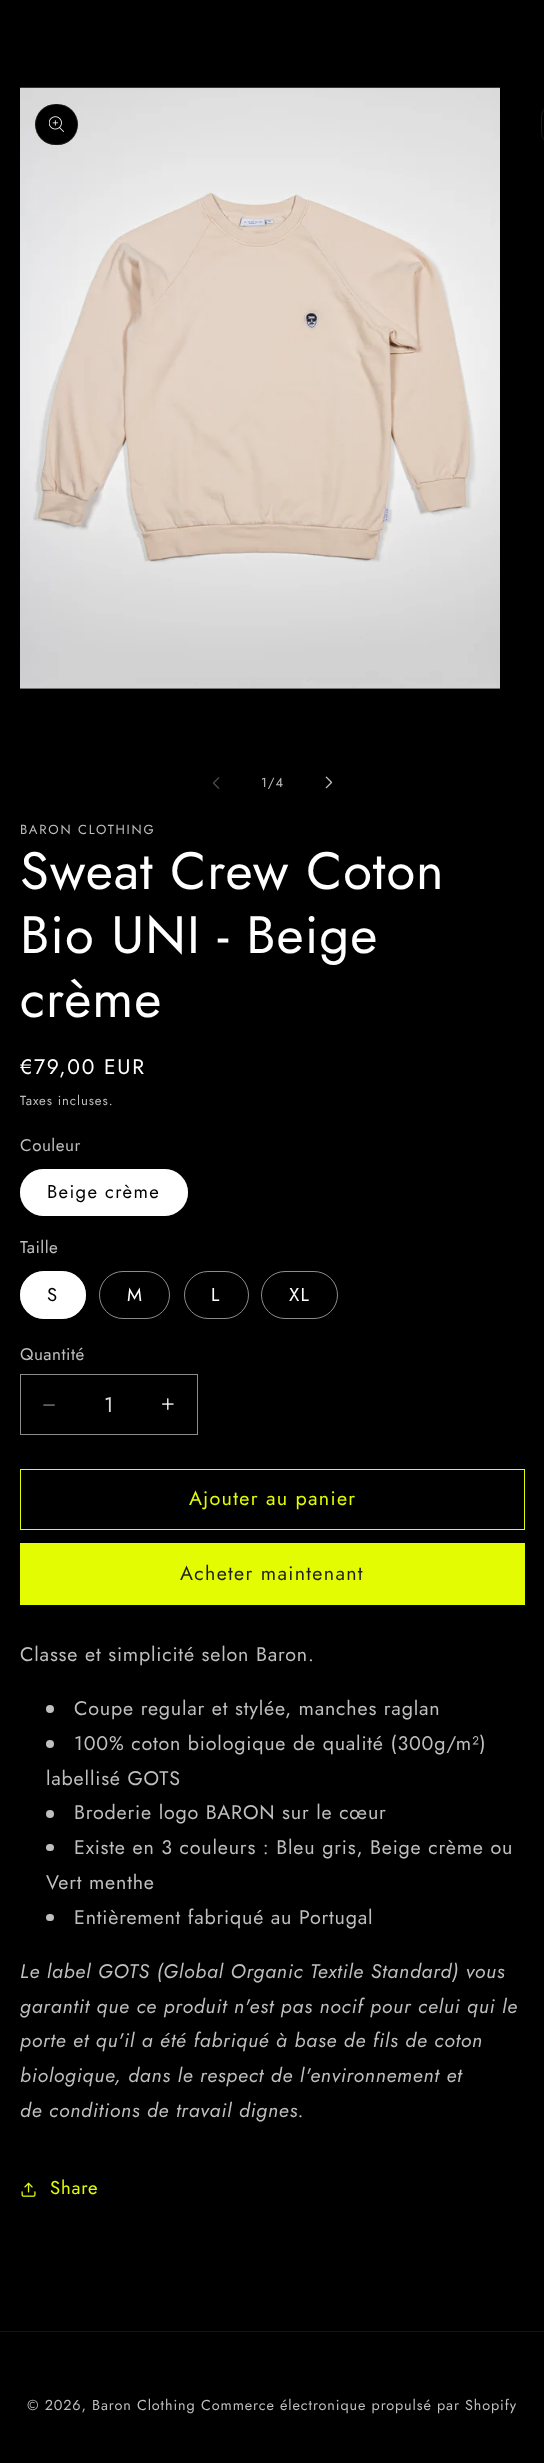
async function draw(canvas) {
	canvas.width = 544;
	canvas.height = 2463;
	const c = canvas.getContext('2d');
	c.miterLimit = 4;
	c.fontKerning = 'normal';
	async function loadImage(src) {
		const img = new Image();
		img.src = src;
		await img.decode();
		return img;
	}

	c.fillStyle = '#000';
	c.fillRect(0, 0, 544, 2463);
	c.drawImage(await loadImage('img1.png'), 20, 87, 480, 602);
	c.beginPath();
	c.roundRect(35, 104, 43, 41, 20.5);
	c.fill();
	c.beginPath();
	c.roundRect(35.5, 104.5, 42, 40, 20);
	c.strokeStyle = '#ffffff1a';
	c.stroke();
	c.drawImage(await loadImage('img2.png'), 49, 116, 15, 16);
	c.beginPath();
	c.roundRect(541.5, 104.5, 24, 40, 20);
	c.strokeStyle = '#1a1a1a';
	c.stroke();
	c.drawImage(await loadImage('img3.png'), 213, 777, 7, 12);
	c.letterSpacing = '0.9px';
	c.font = '13.1px Jost';
	c.fillStyle = '#bfbfbf';
	c.fillText('1/4', 261, 787);
	c.drawImage(await loadImage('img4.png'), 325, 776, 8, 13);
	c.letterSpacing = '1.75px';
	c.fillText('BARON CLOTHING', 20, 834);
	c.letterSpacing = '1px';
	c.font = '52.5px Jost';
	c.fillStyle = '#fff';
	for (const [text, x, y] of [
		['Sweat Crew Coton', 20, 889],
		['Bio UNI - Beige', 20, 953],
		['crème', 20, 1017],
	]) {
		c.fillText(text, x, y);
	}
	c.letterSpacing = '1.75px';
	c.font = '21px Jost';
	c.fillText('€79,00 EUR', 20, 1074);
	c.letterSpacing = '0.9px';
	c.font = '13.1px Jost';
	c.fillStyle = '#bfbfbf';
	c.fillText('Taxes incluses.', 20, 1105);
	c.letterSpacing = '0.5px';
	c.font = '17px Jost';
	c.fillText('Couleur', 20, 1151);
	c.fillStyle = '#fff';
	c.beginPath();
	c.roundRect(20, 1169, 168, 47, 23.5);
	c.fill();
	c.beginPath();
	c.roundRect(20.5, 1169.5, 167, 46, 23);
	c.strokeStyle = '#ffffff8c';
	c.stroke();
	c.letterSpacing = '1.3px';
	c.font = '18.5px Jost';
	c.fillStyle = '#000';
	c.fillText('Beige crème', 47, 1198);
	c.letterSpacing = '0.5px';
	c.font = '17px Jost';
	c.fillStyle = '#bfbfbf';
	c.fillText('Taille', 20, 1253);
	c.fillStyle = '#fff';
	c.beginPath();
	c.roundRect(20, 1271, 66, 48, 24);
	c.fill();
	c.beginPath();
	c.roundRect(20.5, 1271.5, 65, 47, 23.5);
	c.stroke();
	c.letterSpacing = '1.3px';
	c.font = '18.5px Jost';
	c.fillStyle = '#000';
	c.fillText('S', 47, 1301);
	c.beginPath();
	c.roundRect(99.5, 1271.5, 70, 47, 23.5);
	c.strokeStyle = '#8c8c8c';
	c.stroke();
	c.fillStyle = '#fff';
	c.fillText('M', 127, 1301);
	c.beginPath();
	c.roundRect(184.5, 1271.5, 64, 47, 23.5);
	c.stroke();
	c.fillText('L', 211, 1301);
	c.beginPath();
	c.roundRect(261.5, 1271.5, 76, 47, 23.5);
	c.stroke();
	c.fillText('XL', 289, 1301);
	c.letterSpacing = '0.5px';
	c.font = '17px Jost';
	c.fillStyle = '#bfbfbf';
	c.fillText('Quantité', 20, 1360);
	c.drawImage(await loadImage('img5.png'), 43, 1404, 12, 2);
	c.drawImage(await loadImage('img6.png'), 162, 1398, 12, 12);
	c.strokeRect(20.5, 1374.5, 177, 60);
	c.letterSpacing = '0px';
	c.font = '21px Jost';
	c.fillStyle = '#d9d9d9';
	c.fillText('1', 104, 1412);
	c.strokeStyle = '#e3fc02';
	c.strokeRect(20.5, 1469.5, 504, 60);
	c.letterSpacing = '1.3px';
	c.font = '19.7px Jost';
	c.fillStyle = '#e3fc02';
	c.fillText('Ajouter au panier', 189, 1505);
	c.fillRect(20, 1543, 505, 62);
	c.fillStyle = '#1f1f21';
	c.fillText('Acheter maintenant', 180, 1580);
	c.letterSpacing = '0.8px';
	c.fillStyle = '#bfbfbf';
	c.fillText('Classe et simplicité selon Baron.', 20, 1661);
	c.beginPath();
	c.arc(50, 1709, 4, 0, 2 * Math.PI);
	c.fill();
	c.fillText('Coupe regular et stylée, manches raglan', 74, 1715);
	c.beginPath();
	c.arc(50, 1744, 4, 0, 2 * Math.PI);
	c.fill();
	c.fillText('100% coton biologique de qualité (300g/m²)', 74, 1750);
	c.fillText('labellisé GOTS', 46, 1785);
	c.beginPath();
	c.arc(50, 1814, 4, 0, 2 * Math.PI);
	c.fill();
	c.fillText('Broderie logo BARON sur le cœur', 74, 1819);
	c.beginPath();
	c.roundRect(46, 1844, 8, 7, 3.5);
	c.fill();
	c.fillText('Existe en 3 couleurs : Bleu gris, Beige crème ou', 74, 1854);
	c.fillText('Vert menthe', 46, 1889);
	c.beginPath();
	c.roundRect(46, 1914, 8, 7, 3.5);
	c.fill();
	c.fillText('Entièrement fabriqué au Portugal', 74, 1924);
	c.font = 'italic 19.7px Jost';
	for (const [text, x, y] of [
		['Le label GOTS (Global Organic Textile Standard) vous', 20, 1978],
		['garantit que ce produit n\'est pas nocif pour celui qui le', 20, 2013],
		['porte et qu\'il a été fabriqué à base de fils de coton', 20, 2047],
		['biologique, dans le respect de l\'environnement et', 20, 2082],
		['de conditions de travail dignes.', 20, 2117],
	]) {
		c.fillText(text, x, y);
	}
	c.drawImage(await loadImage('img7.png'), 21, 2182, 15, 15);
	c.font = '18.5px Jost';
	c.fillStyle = '#e3fc02';
	c.fillText('Share', 50, 2194);
	c.fillStyle = '#141414';
	c.fillRect(0, 2331, 544, 1);
	c.letterSpacing = '0.9px';
	c.font = '14.4px Jost';
	c.fillStyle = '#bfbfbf';
	c.fillText('© 2026, Baron Clothing', 27, 2410);
	c.fillText('Commerce électronique propulsé par Shopify', 201, 2410);
}

draw(document.querySelector('canvas'));
